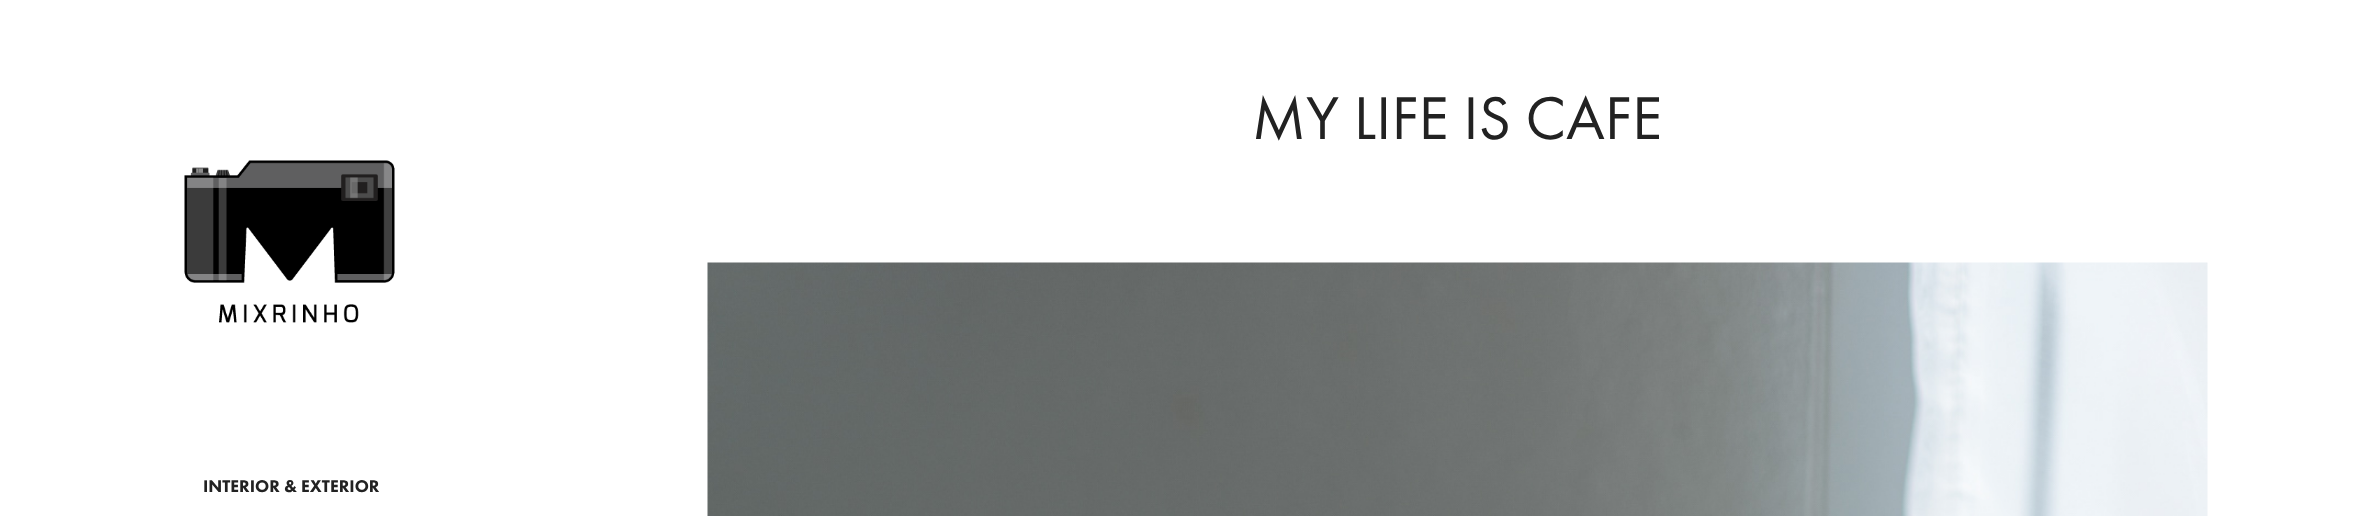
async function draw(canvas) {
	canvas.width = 2378;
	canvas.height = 516;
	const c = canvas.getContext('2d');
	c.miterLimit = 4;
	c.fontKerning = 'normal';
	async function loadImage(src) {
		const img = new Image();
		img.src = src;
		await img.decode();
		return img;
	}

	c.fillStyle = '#fff';
	c.fillRect(0, 0, 2378, 516);
	c.font = '62.5px Futura PT';
	c.fillStyle = '#222';
	c.fillText('MY LIFE IS CAFE', 1252, 139);
	c.drawImage(await loadImage('img1.png'), 707, 262, 1501, 254);
	c.drawImage(await loadImage('img2.png'), 184, 160, 211, 163);
	c.font = '900 17.5px Futura PT';
	c.fillText('INTERIOR & EXTERIOR', 203, 492);
}

draw(document.querySelector('canvas'));
